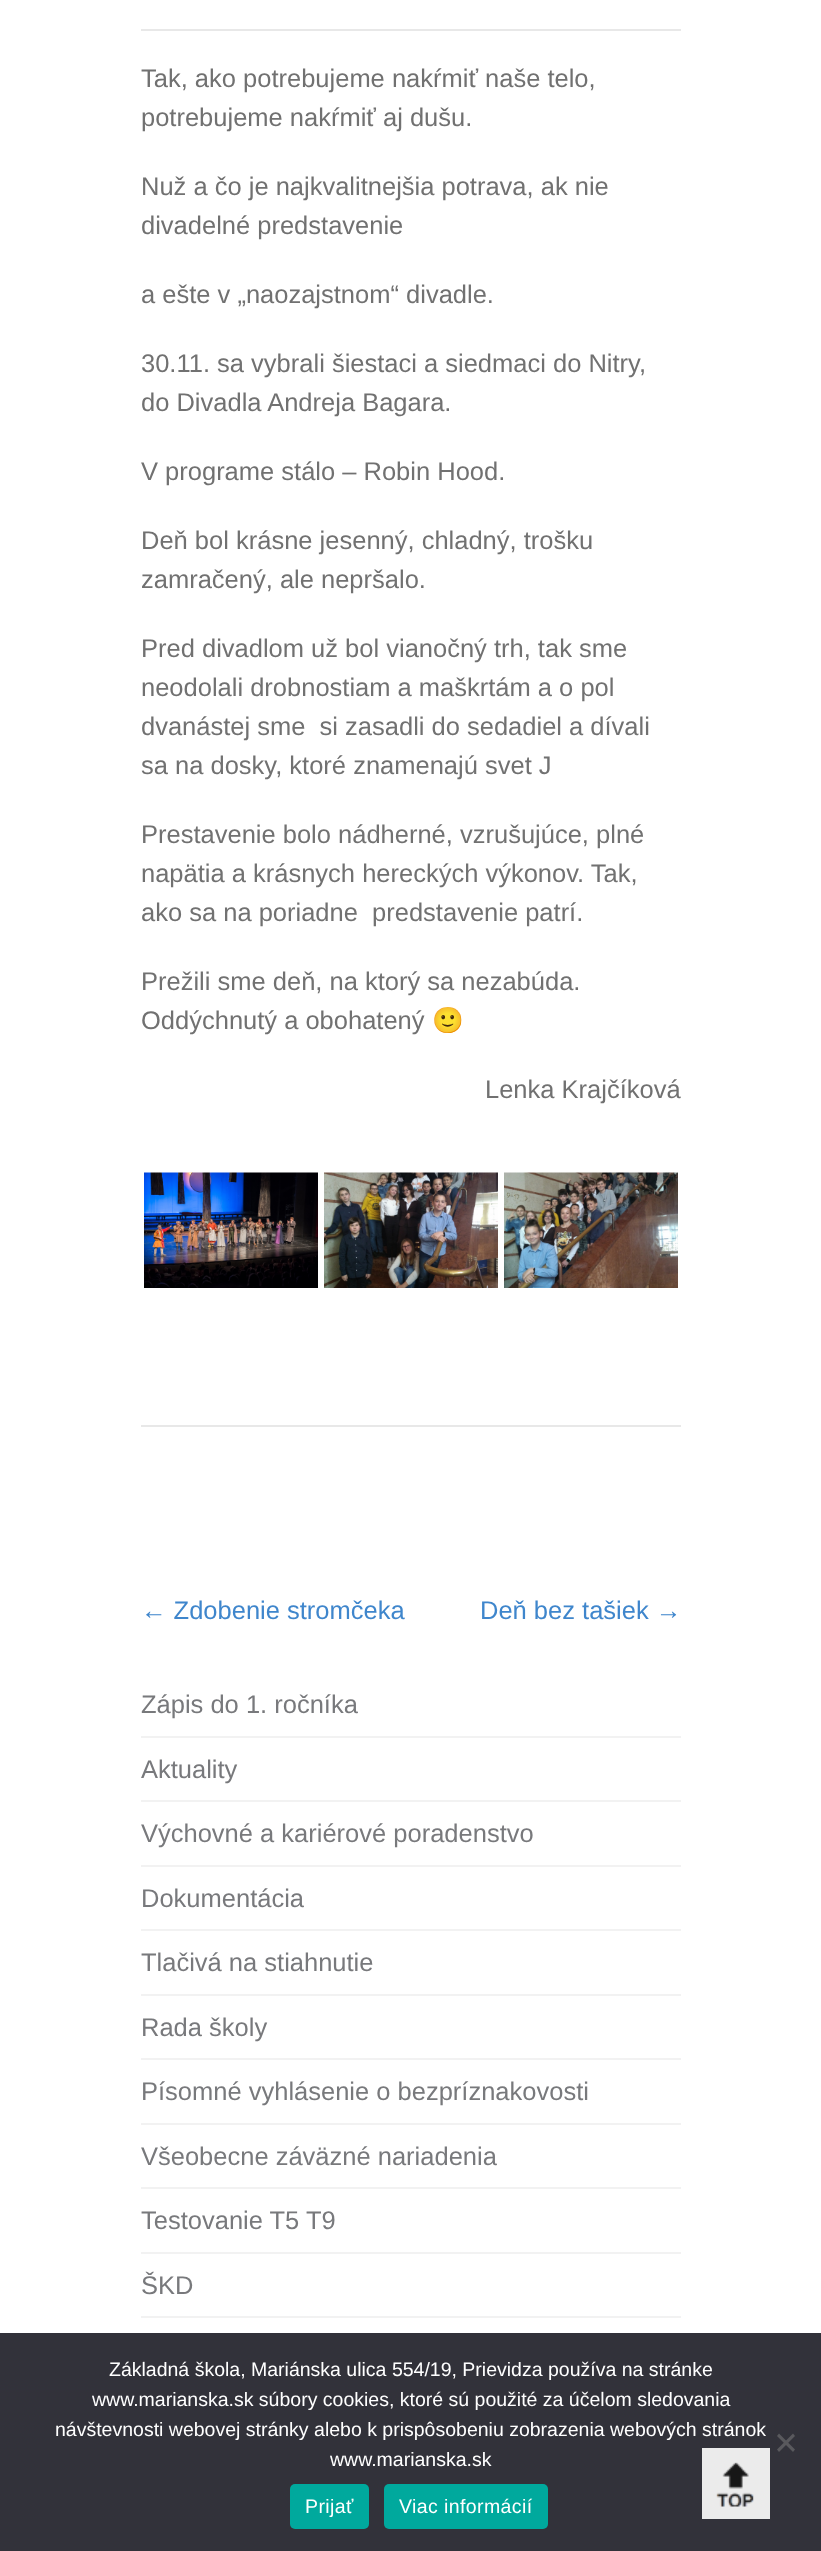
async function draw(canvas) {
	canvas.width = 821;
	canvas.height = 2551;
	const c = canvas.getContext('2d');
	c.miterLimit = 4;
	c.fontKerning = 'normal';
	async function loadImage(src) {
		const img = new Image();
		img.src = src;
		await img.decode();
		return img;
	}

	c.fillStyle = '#fff';
	c.fillRect(0, 0, 821, 2551);
	c.fillStyle = '#e8e8e8';
	c.fillRect(141, 29, 540, 2);
	c.font = '25.5px Liberation Sans';
	c.fillStyle = '#717171';
	for (const [text, x, y] of [
		['Tak, ako potrebujeme nakŕmiť naše telo,', 141, 87],
		['potrebujeme nakŕmiť aj dušu.', 141, 126],
		['Nuž a čo je najkvalitnejšia potrava, ak nie', 141, 195],
		['divadelné predstavenie', 141, 234],
		['a ešte v „naozajstnom“ divadle.', 141, 303],
		['30.11. sa vybrali šiestaci a siedmaci do Nitry,', 141, 372],
		['do Divadla Andreja Bagara.', 141, 411],
		['V programe stálo – Robin Hood.', 141, 480],
		['Deň bol krásne jesenný, chladný, trošku', 141, 549],
		['zamračený, ale nepršalo.', 141, 588],
		['Pred divadlom už bol vianočný trh, tak sme', 141, 657],
		['neodolali drobnostiam a maškrtám a o pol', 141, 696],
		['dvanástej sme  si zasadli do sedadiel a dívali', 141, 735],
		['sa na dosky, ktoré znamenajú svet J', 141, 774],
		['Prestavenie bolo nádherné, vzrušujúce, plné', 141, 843],
		['napätia a krásnych hereckých výkonov. Tak,', 141, 882],
		['ako sa na poriadne  predstavenie patrí.', 141, 921],
		['Prežili sme deň, na ktorý sa nezabúda.', 141, 990],
		['Oddýchnutý a obohatený', 141, 1029],
	]) {
		c.fillText(text, x, y);
	}
	c.font = '25.5px Noto Color Emoji';
	c.fillText('🙂', 432, 1029);
	c.font = '25.5px Liberation Sans';
	c.fillText('Lenka Krajčíková', 485, 1098);
	c.drawImage(await loadImage('img1.png'), 144, 1172, 174, 116);
	c.drawImage(await loadImage('img2.png'), 324, 1172, 174, 116);
	c.drawImage(await loadImage('img3.png'), 504, 1172, 174, 116);
	c.fillStyle = '#e8e8e8';
	c.fillRect(141, 1425, 540, 2);
	c.fillStyle = '#3f86cc';
	c.fillText('← Zdobenie stromčeka', 141, 1619);
	c.fillText('Deň bez tašiek →', 480, 1619);
	c.fillStyle = '#f2f2f2';
	c.fillRect(141, 1736, 540, 2);
	c.fillStyle = '#78797c';
	c.fillText('Zápis do 1. ročníka', 141, 1713);
	c.fillStyle = '#f2f2f2';
	c.fillRect(141, 1800, 540, 2);
	c.fillStyle = '#78797c';
	c.fillText('Aktuality', 141, 1778);
	c.fillStyle = '#f2f2f2';
	c.fillRect(141, 1865, 540, 2);
	c.fillStyle = '#78797c';
	c.fillText('Výchovné a kariérové poradenstvo', 141, 1842);
	c.fillStyle = '#f2f2f2';
	c.fillRect(141, 1929, 540, 2);
	c.fillStyle = '#78797c';
	c.fillText('Dokumentácia', 141, 1907);
	c.fillStyle = '#f2f2f2';
	c.fillRect(141, 1994, 540, 2);
	c.fillStyle = '#78797c';
	c.fillText('Tlačivá na stiahnutie', 141, 1971);
	c.fillStyle = '#f2f2f2';
	c.fillRect(141, 2058, 540, 2);
	c.fillStyle = '#78797c';
	c.fillText('Rada školy', 141, 2036);
	c.fillStyle = '#f2f2f2';
	c.fillRect(141, 2123, 540, 2);
	c.fillStyle = '#78797c';
	c.fillText('Písomné vyhlásenie o bezpríznakovosti', 141, 2100);
	c.fillStyle = '#f2f2f2';
	c.fillRect(141, 2187, 540, 2);
	c.fillStyle = '#78797c';
	c.fillText('Všeobecne záväzné nariadenia', 141, 2165);
	c.fillStyle = '#f2f2f2';
	c.fillRect(141, 2252, 540, 2);
	c.fillStyle = '#78797c';
	c.fillText('Testovanie T5', 141, 2229);
	c.fillText('T9', 306, 2229);
	c.fillStyle = '#f2f2f2';
	c.fillRect(141, 2316, 540, 2);
	c.fillStyle = '#78797c';
	c.fillText('ŠKD', 141, 2294);
	c.fillStyle = '#32323a';
	c.fillRect(0, 2333, 821, 218);
	c.font = '19.5px Liberation Sans';
	c.fillStyle = '#fff';
	for (const [text, x, y] of [
		['Základná škola, Mariánska ulica 554/19, Prievidza používa na stránke', 109, 2376],
		['www.marianska.sk súbory cookies, ktoré sú použité za účelom sledovania', 92, 2406],
		['návštevnosti webovej stránky alebo k prispôsobeniu zobrazenia webových stránok', 55, 2436],
		['www.marianska.sk', 330, 2466],
	]) {
		c.fillText(text, x, y);
	}
	c.fillStyle = '#59595d';
	c.beginPath();
	c.moveTo(793, 2433.5);
	c.lineTo(795, 2436);
	c.lineTo(779, 2452);
	c.lineTo(777, 2449.5);
	c.closePath();
	c.fill();
	c.beginPath();
	c.moveTo(777, 2436);
	c.lineTo(779, 2433.5);
	c.lineTo(795, 2449.5);
	c.lineTo(793, 2452);
	c.closePath();
	c.fill();
	c.fillStyle = '#00a99d';
	c.beginPath();
	c.roundRect(290, 2484, 79, 45, 5);
	c.fill();
	c.letterSpacing = '0.4px';
	c.fillStyle = '#fff';
	c.fillText('Prijať', 305, 2513);
	c.fillStyle = '#00a99d';
	c.beginPath();
	c.roundRect(384, 2484, 164, 45, 5);
	c.fill();
	c.fillStyle = '#fff';
	c.fillText('Viac informácií', 399, 2513);
	c.fillStyle = '#ebebeb';
	c.fillRect(702, 2448, 68, 71);
	c.drawImage(await loadImage('img4.png'), 716, 2462, 38, 45);
}

draw(document.querySelector('canvas'));
